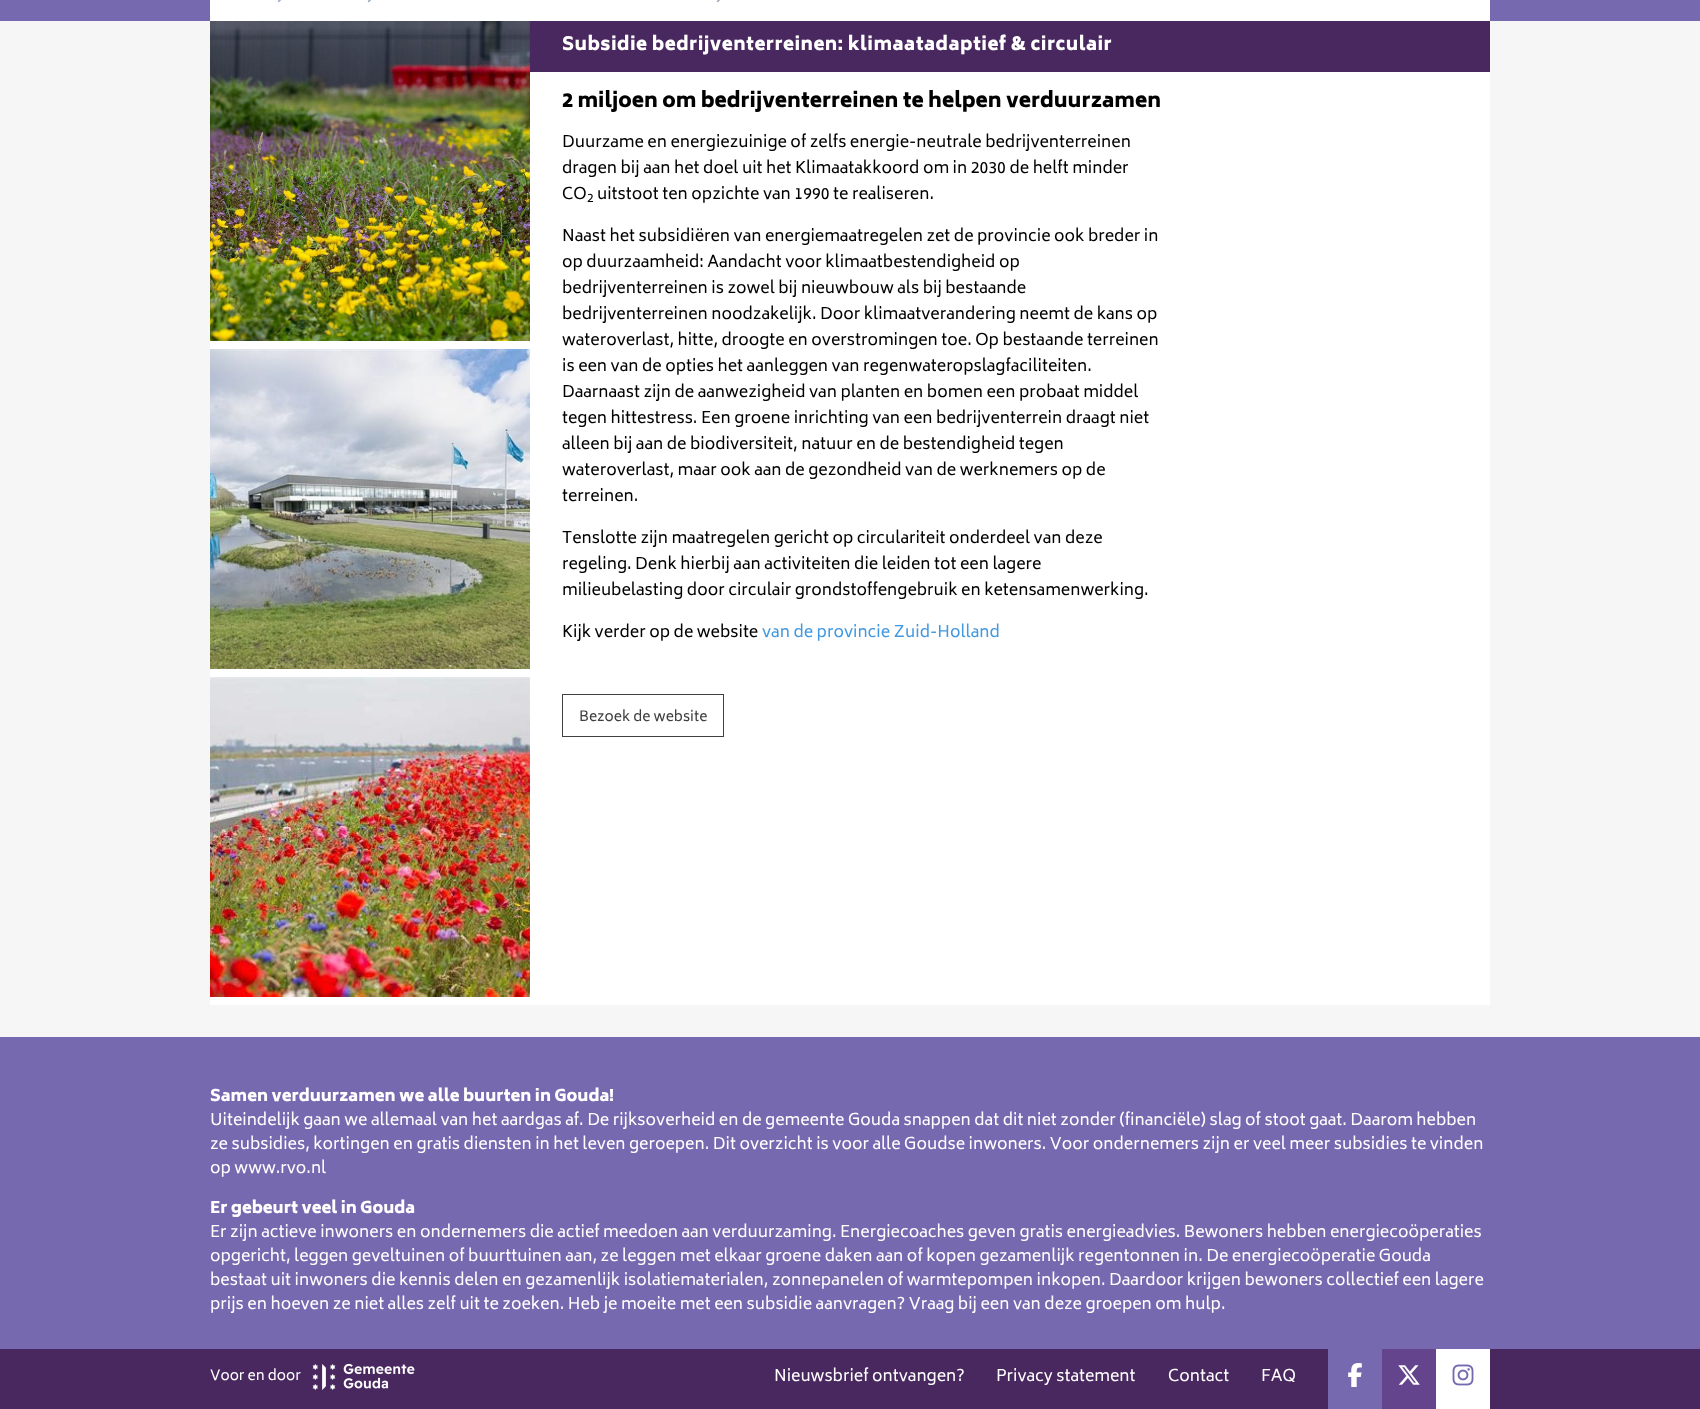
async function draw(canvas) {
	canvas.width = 1700;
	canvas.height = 1409;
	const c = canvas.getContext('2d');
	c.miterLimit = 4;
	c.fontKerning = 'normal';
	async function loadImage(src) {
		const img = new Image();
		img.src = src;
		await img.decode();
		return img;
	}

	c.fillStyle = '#f6f6f6';
	c.fillRect(0, 0, 1700, 1409);
	c.fillStyle = '#7769af';
	c.fillRect(0, 0, 1700, 21);
	c.fillStyle = '#fff';
	c.fillRect(210, 0, 1280, 21);
	c.drawImage(await loadImage('img1.png'), 277, 0, 4, 3);
	c.drawImage(await loadImage('img1.png'), 367, 0, 4, 3);
	c.drawImage(await loadImage('img1.png'), 716, 0, 4, 3);
	c.fillRect(210, 72, 1280, 933);
	c.drawImage(await loadImage('img2.png'), 210, 21, 320, 320);
	c.drawImage(await loadImage('img3.png'), 210, 349, 320, 320);
	c.drawImage(await loadImage('img4.png'), 210, 677, 320, 320);
	c.fillStyle = '#492860';
	c.fillRect(530, 21, 960, 51);
	c.letterSpacing = '0.45px';
	c.font = '900 18px Biryani';
	c.fillStyle = '#fff';
	c.fillText('Subsidie bedrijventerreinen: klimaatadaptief & circulair', 562, 50);
	c.letterSpacing = '0px';
	c.font = '900 20px Biryani';
	c.fillStyle = '#000';
	c.fillText('2 miljoen om bedrijventerreinen te helpen verduurzamen', 562, 107);
	c.font = '16px Biryani';
	for (const [text, x, y] of [
		['Duurzame en energiezuinige of zelfs energie-neutrale bedrijventerreinen', 562, 147],
		['dragen bij aan het doel uit het Klimaatakkoord om in 2030 de helft minder', 562, 173],
		['CO', 562, 199],
	]) {
		c.fillText(text, x, y);
	}
	c.font = '12px Biryani';
	c.fillText('2', 587, 202);
	c.font = '16px Biryani';
	for (const [text, x, y] of [
		['uitstoot ten opzichte van 1990 te realiseren.', 597, 199],
		['Naast het subsidiëren van energiemaatregelen zet de provincie ook breder in', 562, 241],
		['op duurzaamheid: Aandacht voor klimaatbestendigheid op', 562, 267],
		['bedrijventerreinen is zowel bij nieuwbouw als bij bestaande', 562, 293],
		['bedrijventerreinen noodzakelijk. Door klimaatverandering neemt de kans op', 562, 319],
		['wateroverlast, hitte, droogte en overstromingen toe. Op bestaande terreinen', 562, 345],
		['is een van de opties het aanleggen van regenwateropslagfaciliteiten.', 562, 371],
		['Daarnaast zijn de aanwezigheid van planten en bomen een probaat middel', 562, 397],
		['tegen hittestress. Een groene inrichting van een bedrijventerrein draagt niet', 562, 423],
		['alleen bij aan de biodiversiteit, natuur en de bestendigheid tegen', 562, 449],
		['wateroverlast, maar ook aan de gezondheid van de werknemers op de', 562, 475],
		['terreinen.', 562, 501],
		['Tenslotte zijn maatregelen gericht op circulariteit onderdeel van deze', 562, 543],
		['regeling. Denk hierbij aan activiteiten die leiden tot een lagere', 562, 569],
		['milieubelasting door circulair grondstoffengebruik en ketensamenwerking.', 562, 595],
		['Kijk verder op de website', 562, 637],
	]) {
		c.fillText(text, x, y);
	}
	c.fillStyle = '#4299e1';
	c.fillText('van de provincie Zuid-Holland', 762, 637);
	c.strokeStyle = '#404040';
	c.strokeRect(562.5, 694.5, 161, 42);
	c.font = '14px Biryani';
	c.fillStyle = '#404040';
	c.fillText('Bezoek de website', 579, 721);
	c.fillStyle = '#7769af';
	c.fillRect(0, 1037, 1700, 312);
	c.font = '900 16px Biryani';
	c.fillStyle = '#fff';
	c.fillText('Samen verduurzamen we alle buurten in Gouda!', 210, 1101);
	c.font = '16px Biryani';
	for (const [text, x, y] of [
		['Uiteindelijk gaan we allemaal van het aardgas af. De rijksoverheid en de gemeente Gouda snappen dat dit niet zonder (financiële) slag of stoot gaat. Daarom hebben', 210, 1125],
		['ze subsidies, kortingen en gratis diensten in het leven geroepen. Dit overzicht is voor alle Goudse inwoners. Voor ondernemers zijn er veel meer subsidies te vinden', 210, 1149],
		['op www.rvo.nl', 210, 1173],
	]) {
		c.fillText(text, x, y);
	}
	c.font = '900 16px Biryani';
	c.fillText('Er gebeurt veel in Gouda', 210, 1213);
	c.font = '16px Biryani';
	for (const [text, x, y] of [
		['Er zijn actieve inwoners en ondernemers die actief meedoen aan verduurzaming. Energiecoaches geven gratis energieadvies. Bewoners hebben energiecoöperaties', 210, 1237],
		['opgericht, leggen geveltuinen of buurttuinen aan, ze leggen met elkaar groene daken aan of kopen gezamenlijk regentonnen in. De energiecoöperatie Gouda', 210, 1261],
		['bestaat uit inwoners die kennis delen en gezamenlijk isolatiematerialen, zonnepanelen of warmtepompen inkopen. Daardoor krijgen bewoners collectief een lagere', 210, 1285],
		['prijs en hoeven ze niet alles zelf uit te zoeken. Heb je moeite met een subsidie aanvragen? Vraag bij een van deze groepen om hulp.', 210, 1309],
	]) {
		c.fillText(text, x, y);
	}
	c.fillStyle = '#492860';
	c.fillRect(0, 1349, 1700, 60);
	c.font = '14px Biryani';
	c.fillStyle = '#fff';
	c.fillText('Voor en door', 210, 1380);
	c.drawImage(await loadImage('img5.png'), 312, 1363, 103, 27);
	c.font = '16px Biryani';
	for (const [text, x, y] of [
		['Nieuwsbrief ontvangen?', 774, 1381],
		['Privacy statement', 996, 1381],
		['Contact', 1168, 1381],
		['FAQ', 1261, 1381],
	]) {
		c.fillText(text, x, y);
	}
	c.fillStyle = '#7769af';
	c.fillRect(1328, 1349, 54, 60);
	c.drawImage(await loadImage('img6.png'), 1348, 1363, 14, 24);
	c.fillStyle = '#64458d';
	c.fillRect(1382, 1349, 54, 60);
	c.drawImage(await loadImage('img7.png'), 1398, 1365, 22, 20);
	c.fillStyle = '#fff';
	c.fillRect(1436, 1349, 54, 60);
	c.drawImage(await loadImage('img8.png'), 1452, 1364, 22, 22);
}

draw(document.querySelector('canvas'));
